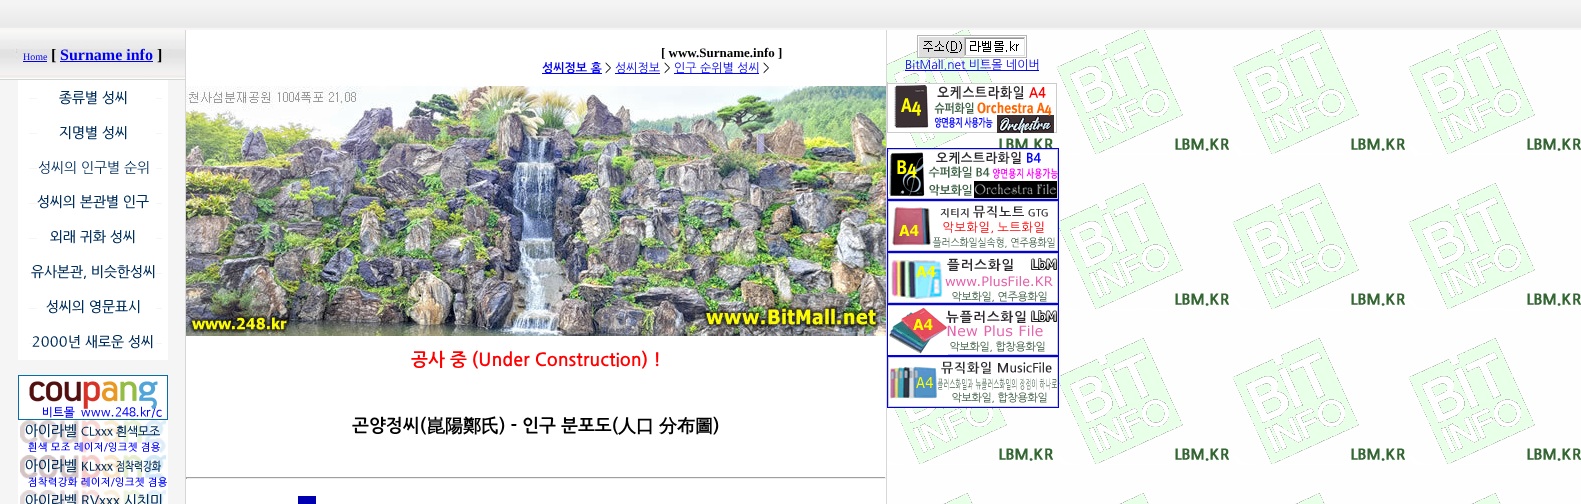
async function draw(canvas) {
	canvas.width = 1581;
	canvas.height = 504;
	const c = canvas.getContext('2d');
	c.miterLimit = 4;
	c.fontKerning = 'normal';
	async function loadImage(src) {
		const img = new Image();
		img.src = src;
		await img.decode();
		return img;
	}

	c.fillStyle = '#fff';
	c.fillRect(0, 0, 1581, 504);
	c.drawImage(await loadImage('img1.png'), 887, 30, 694, 474);
	c.drawImage(await loadImage('img2.png'), 0, 0, 1581, 30);
	c.fillStyle = '#f5f5f5';
	c.fillRect(0, 80, 185, 424);
	c.fillStyle = '#d7d7d7';
	c.fillRect(185, 30, 1, 474);
	c.drawImage(await loadImage('img3.png'), 0, 30, 185, 50);
	c.font = '10px Liberation Serif';
	c.fillStyle = '#00e';
	c.fillText('Home', 23, 60);
	c.fillRect(23, 61, 24, 1);
	c.font = 'bold 16px Liberation Serif';
	c.fillStyle = '#000';
	c.fillText('[', 51, 60);
	c.fillStyle = '#00e';
	c.fillText('Surname info', 60, 60);
	c.fillRect(60, 61, 93, 1);
	c.fillStyle = '#000';
	c.fillText(']', 157, 60);
	c.drawImage(await loadImage('img4.png'), 18, 80, 150, 35);
	c.drawImage(await loadImage('img5.png'), 18, 115, 150, 35);
	c.drawImage(await loadImage('img6.png'), 18, 150, 150, 35);
	c.drawImage(await loadImage('img7.png'), 18, 185, 150, 35);
	c.drawImage(await loadImage('img8.png'), 18, 220, 150, 35);
	c.drawImage(await loadImage('img9.png'), 18, 255, 150, 35);
	c.drawImage(await loadImage('img10.png'), 18, 290, 150, 35);
	c.drawImage(await loadImage('img11.png'), 18, 325, 150, 35);
	c.drawImage(await loadImage('img12.png'), 18, 375, 150, 45);
	c.drawImage(await loadImage('img13.png'), 18, 420, 150, 35);
	c.drawImage(await loadImage('img14.png'), 18, 455, 150, 35);
	c.drawImage(await loadImage('img15.png'), 18, 490, 150, 14);
	c.font = 'bold 13px Liberation Serif';
	c.fillText('[ www.Surname.info ]', 661, 57);
	c.fillStyle = '#00e';
	c.fillRect(542, 73, 60, 1);
	c.font = 'bold 12px NanumGothic';
	c.fillText('성씨정보 홈', 542, 72);
	c.font = '12px NanumGothic';
	c.fillStyle = '#000';
	c.fillText('>', 605, 72);
	c.fillStyle = '#00e';
	c.fillRect(615, 73, 45, 1);
	c.fillText('성씨정보', 615, 72);
	c.fillStyle = '#000';
	c.fillText('>', 664, 72);
	c.fillStyle = '#00e';
	c.fillRect(674, 73, 85, 1);
	c.fillText('인구 순위별 성씨', 674, 72);
	c.fillStyle = '#000';
	c.fillText('>', 763, 72);
	c.drawImage(await loadImage('img16.png'), 186, 86, 700, 250);
	c.font = 'bold 18px NanumGothic';
	c.fillStyle = '#f00';
	c.fillText('공사 중 (Under Construction) !', 411, 366);
	c.fillStyle = '#000';
	c.fillText('곤양정씨(', 352, 432);
	c.font = 'bold 18px WenQuanYi Zen Hei';
	c.fillText('崑陽鄭氏', 427, 432);
	c.font = 'bold 18px NanumGothic';
	c.fillText(') - 인구 분포도(', 499, 432);
	c.font = 'bold 18px WenQuanYi Zen Hei';
	c.fillText('人口', 618, 432);
	c.fillText('分布圖', 659, 432);
	c.font = 'bold 18px NanumGothic';
	c.fillText(')', 713, 432);
	for (const [x, y, w, h, color] of [
		[186, 477, 700, 1, '#9f9f9f'],
		[885, 477, 1, 2, '#eee'],
		[186, 478, 700, 1, '#eee'],
		[186, 477, 1, 2, '#9f9f9f'],
		[298, 496, 18, 8, '#0000b1'],
		[886, 30, 1, 474, '#d7d7d7'],
	]) {
		c.fillStyle = color;
		c.fillRect(x, y, w, h);
	}
	c.drawImage(await loadImage('img17.png'), 917, 35, 110, 23);
	c.fillStyle = '#00e';
	c.fillRect(905, 70, 134, 1);
	c.font = '12px NanumGothic';
	c.fillText('BitMall.net 비트몰 네이버', 905, 69);
	c.drawImage(await loadImage('img18.png'), 887, 83, 170, 50);
	c.strokeStyle = '#00e';
	c.strokeRect(887.5, 148.5, 171, 51);
	c.drawImage(await loadImage('img19.png'), 888, 149, 170, 50);
	c.strokeRect(887.5, 200.5, 171, 51);
	c.drawImage(await loadImage('img20.png'), 888, 201, 170, 50);
	c.strokeRect(887.5, 252.5, 171, 51);
	c.drawImage(await loadImage('img21.png'), 888, 253, 170, 50);
	c.strokeRect(887.5, 304.5, 171, 51);
	c.drawImage(await loadImage('img22.png'), 888, 305, 170, 50);
	c.strokeRect(887.5, 356.5, 171, 51);
	c.drawImage(await loadImage('img23.png'), 888, 357, 170, 50);
}

draw(document.querySelector('canvas'));
